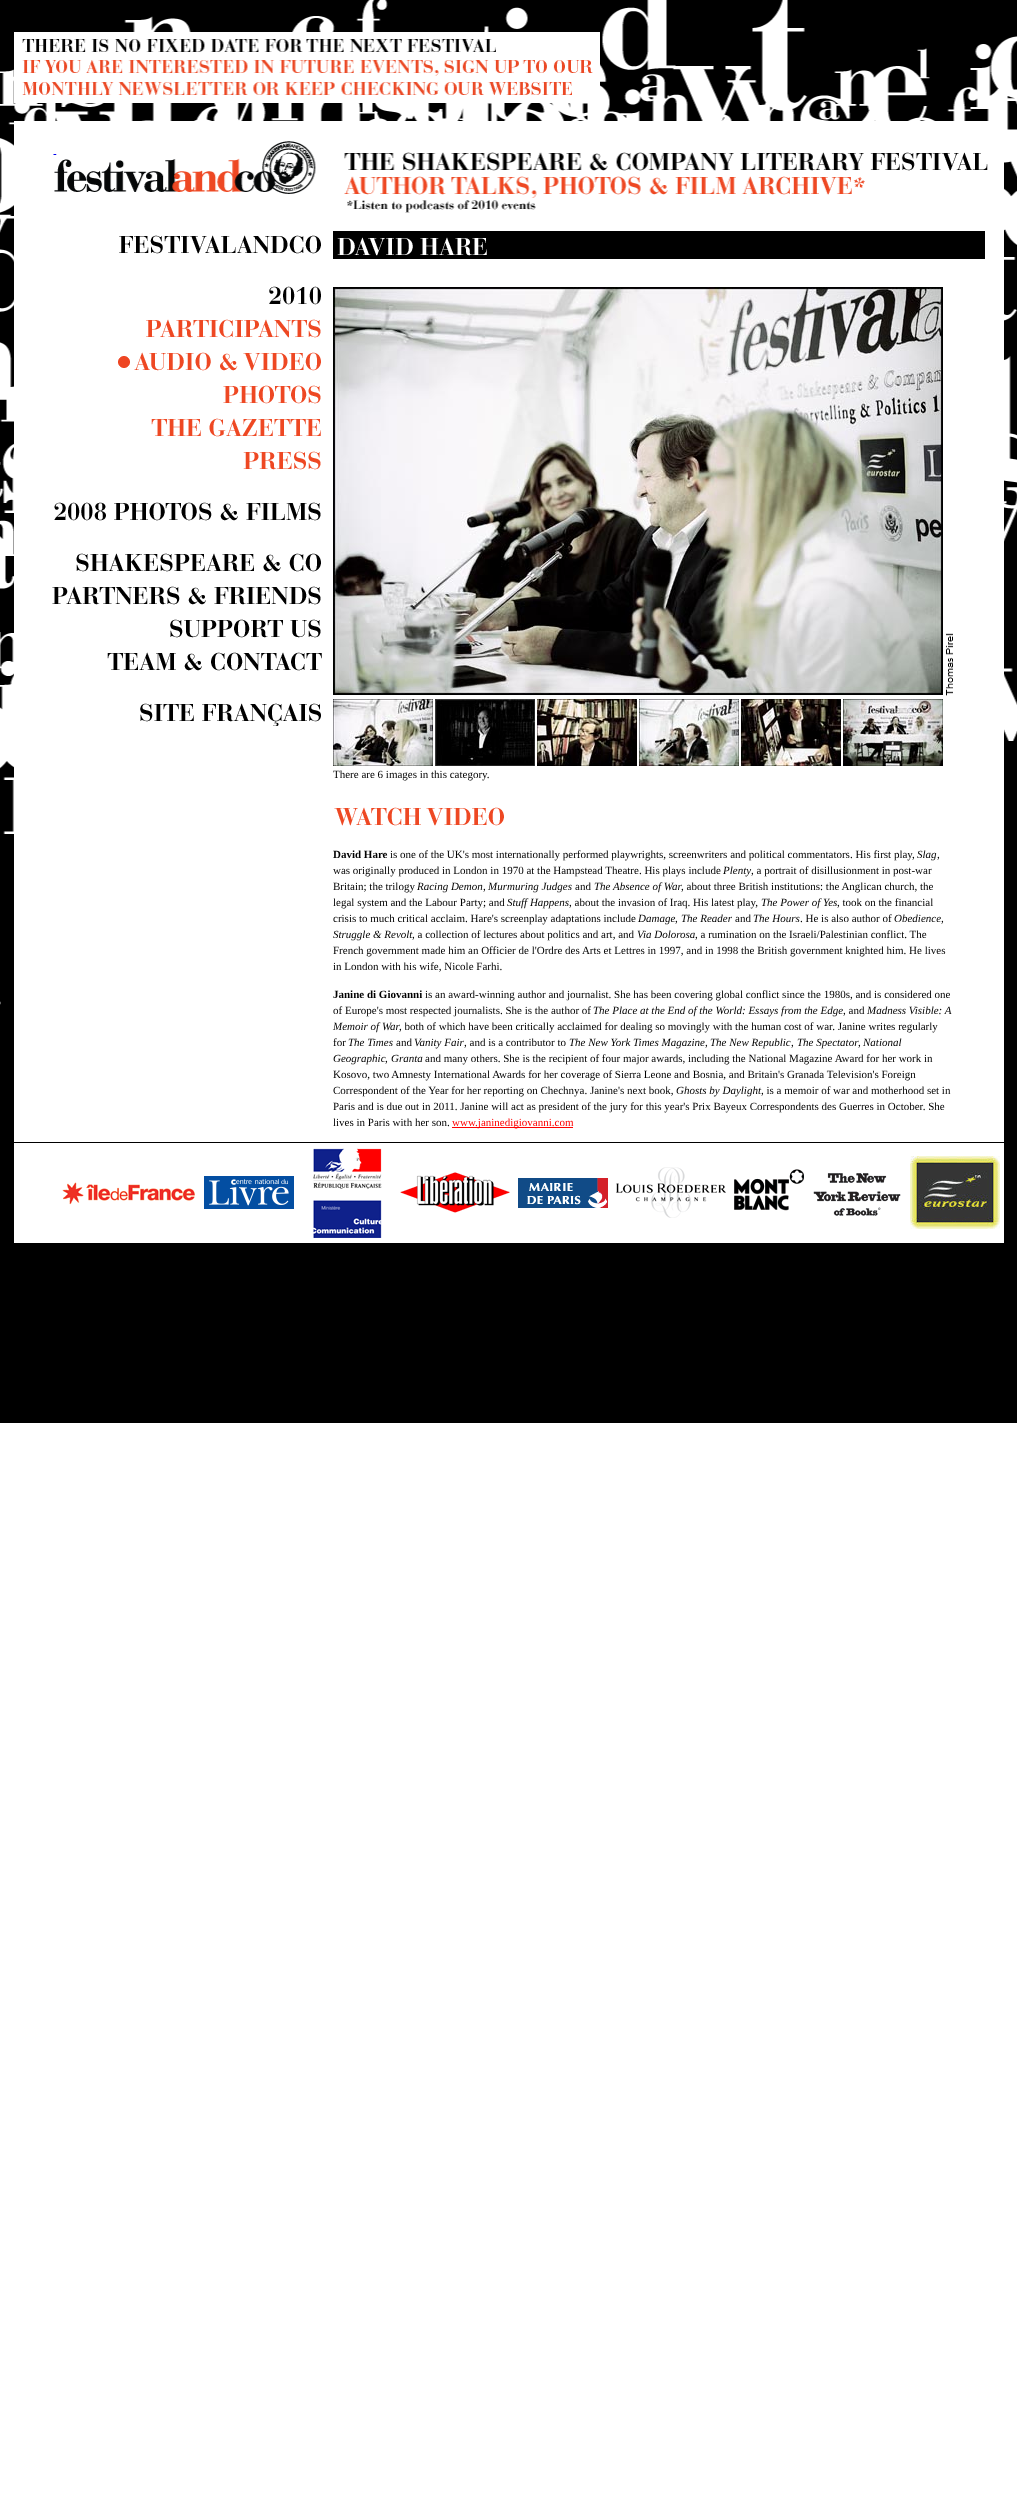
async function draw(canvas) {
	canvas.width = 1017;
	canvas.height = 2513;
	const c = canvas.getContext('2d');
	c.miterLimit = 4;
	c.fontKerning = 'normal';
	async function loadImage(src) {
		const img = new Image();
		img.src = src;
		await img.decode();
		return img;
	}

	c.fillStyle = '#fff';
	c.fillRect(0, 0, 1017, 2513);
	c.drawImage(await loadImage('img1.png'), 0, 0, 1017, 1423);
	c.drawImage(await loadImage('img2.png'), 14, 32, 586, 71);
	c.fillRect(14, 121, 990, 1021);
	c.drawImage(await loadImage('img3.png'), 53, 141, 935, 72);
	c.drawImage(await loadImage('img4.png'), 119, 235, 202, 19);
	c.drawImage(await loadImage('img5.png'), 269, 286, 52, 19);
	c.drawImage(await loadImage('img6.png'), 146, 319, 175, 19);
	c.drawImage(await loadImage('img7.png'), 118, 356, 12, 12);
	c.drawImage(await loadImage('img8.png'), 134, 352, 187, 19);
	c.drawImage(await loadImage('img9.png'), 223, 385, 98, 19);
	c.drawImage(await loadImage('img10.png'), 151, 418, 170, 19);
	c.drawImage(await loadImage('img11.png'), 243, 451, 78, 19);
	c.drawImage(await loadImage('img12.png'), 54, 502, 267, 19);
	c.drawImage(await loadImage('img13.png'), 76, 553, 245, 19);
	c.drawImage(await loadImage('img14.png'), 52, 586, 269, 19);
	c.drawImage(await loadImage('img15.png'), 170, 619, 151, 19);
	c.drawImage(await loadImage('img16.png'), 107, 652, 215, 19);
	c.drawImage(await loadImage('img17.png'), 140, 703, 181, 23);
	c.drawImage(await loadImage('img18.png'), 333, 231, 652, 28);
	c.drawImage(await loadImage('img19.png'), 333, 287, 610, 408);
	c.drawImage(await loadImage('img20.png'), 946, 633, 7, 63);
	c.drawImage(await loadImage('img21.png'), 333, 699, 100, 67);
	c.drawImage(await loadImage('img22.png'), 435, 699, 100, 67);
	c.drawImage(await loadImage('img23.png'), 537, 699, 100, 67);
	c.drawImage(await loadImage('img24.png'), 639, 699, 100, 67);
	c.drawImage(await loadImage('img25.png'), 741, 699, 100, 67);
	c.drawImage(await loadImage('img26.png'), 843, 699, 100, 67);
	c.font = '11px Liberation Serif';
	c.fillStyle = '#000';
	c.fillText('There are 6 images in this category.', 333, 778);
	c.drawImage(await loadImage('img27.png'), 334, 807, 170, 19);
	c.font = 'bold 11px Liberation Serif';
	c.fillText('David Hare', 333, 858);
	c.font = '11px Liberation Serif';
	c.fillText('is one of the UK\'s most internationally performed playwrights, screenwriters and political commentators. His first play,', 390, 858);
	c.font = 'italic 11px Liberation Serif';
	c.fillText('Slag', 917, 858);
	c.font = '11px Liberation Serif';
	c.fillText(',', 937, 858);
	c.fillText('was originally produced in London in 1970 at the Hampstead Theatre. His plays include', 333, 874);
	c.font = 'italic 11px Liberation Serif';
	c.fillText('Plenty', 723, 874);
	c.font = '11px Liberation Serif';
	c.fillText(', a portrait of disillusionment in post-war', 751, 874);
	c.fillText('Britain; the trilogy', 333, 890);
	c.font = 'italic 11px Liberation Serif';
	c.fillText('Racing Demon', 417, 890);
	c.font = '11px Liberation Serif';
	c.fillText(',', 483, 890);
	c.font = 'italic 11px Liberation Serif';
	c.fillText('Murmuring Judges', 488, 890);
	c.font = '11px Liberation Serif';
	c.fillText('and', 575, 890);
	c.font = 'italic 11px Liberation Serif';
	c.fillText('The Absence of War', 594, 890);
	c.font = '11px Liberation Serif';
	c.fillText(', about three British institutions: the Anglican church, the', 681, 890);
	c.fillText('legal system and the Labour Party; and', 333, 906);
	c.font = 'italic 11px Liberation Serif';
	c.fillText('Stuff Happens', 507, 906);
	c.font = '11px Liberation Serif';
	c.fillText(', about the invasion of Iraq. His latest play,', 569, 906);
	c.font = 'italic 11px Liberation Serif';
	c.fillText('The Power of Yes', 761, 906);
	c.font = '11px Liberation Serif';
	c.fillText(', took on the financial', 837, 906);
	c.fillText('crisis to much critical acclaim. Hare\'s screenplay adaptations include', 333, 922);
	c.font = 'italic 11px Liberation Serif';
	c.fillText('Damage', 638, 922);
	c.font = '11px Liberation Serif';
	c.fillText(',', 675, 922);
	c.font = 'italic 11px Liberation Serif';
	c.fillText('The Reader', 681, 922);
	c.font = '11px Liberation Serif';
	c.fillText('and', 735, 922);
	c.font = 'italic 11px Liberation Serif';
	c.fillText('The Hours', 753, 922);
	c.font = '11px Liberation Serif';
	c.fillText('. He is also author of', 800, 922);
	c.font = 'italic 11px Liberation Serif';
	c.fillText('Obedience,', 894, 922);
	c.fillText('Struggle & Revolt', 333, 938);
	c.font = '11px Liberation Serif';
	c.fillText(', a collection of lectures about politics and art, and', 412, 938);
	c.font = 'italic 11px Liberation Serif';
	c.fillText('Via Dolorosa', 637, 938);
	c.font = '11px Liberation Serif';
	for (const [text, x, y] of [
		[', a rumination on the Israeli/Palestinian conflict. The', 695, 938],
		['French government made him an Officier de l\'Ordre des Arts et Lettres in 1997, and in 1998 the British government knighted him. He lives', 333, 954],
		['in London with his wife, Nicole Farhi.', 333, 970],
	]) {
		c.fillText(text, x, y);
	}
	c.font = 'bold 11px Liberation Serif';
	c.fillText('Janine di Giovanni', 333, 998);
	c.font = '11px Liberation Serif';
	c.fillText('is an award-winning author and journalist. She has been covering global conflict since the 1980s, and is considered one', 425, 998);
	c.fillText('of Europe\'s most respected journalists. She is the author of', 333, 1014);
	c.font = 'italic 11px Liberation Serif';
	c.fillText('The Place at the End of the World: Essays from the Edge', 593, 1014);
	c.font = '11px Liberation Serif';
	c.fillText(', and', 843, 1014);
	c.font = 'italic 11px Liberation Serif';
	c.fillText('Madness Visible: A', 867, 1014);
	c.fillText('Memoir of War', 333, 1030);
	c.font = '11px Liberation Serif';
	c.fillText(', both of which have been critically acclaimed for dealing so movingly with the human cost of war. Janine writes regularly', 399, 1030);
	c.fillText('for', 333, 1046);
	c.font = 'italic 11px Liberation Serif';
	c.fillText('The Times', 348, 1046);
	c.font = '11px Liberation Serif';
	c.fillText('and', 396, 1046);
	c.font = 'italic 11px Liberation Serif';
	c.fillText('Vanity Fair', 414, 1046);
	c.font = '11px Liberation Serif';
	c.fillText(', and is a contributor to', 464, 1046);
	c.font = 'italic 11px Liberation Serif';
	c.fillText('The New York Times Magazine', 569, 1046);
	c.font = '11px Liberation Serif';
	c.fillText(',', 705, 1046);
	c.font = 'italic 11px Liberation Serif';
	c.fillText('The New Republic', 710, 1046);
	c.font = '11px Liberation Serif';
	c.fillText(',', 791, 1046);
	c.font = 'italic 11px Liberation Serif';
	c.fillText('The Spectator', 797, 1046);
	c.font = '11px Liberation Serif';
	c.fillText(',', 858, 1046);
	c.font = 'italic 11px Liberation Serif';
	c.fillText('National', 863, 1046);
	c.fillText('Geographic', 333, 1062);
	c.font = '11px Liberation Serif';
	c.fillText(',', 385, 1062);
	c.font = 'italic 11px Liberation Serif';
	c.fillText('Granta', 391, 1062);
	c.font = '11px Liberation Serif';
	for (const [text, x, y] of [
		['and many others. She is the recipient of four major awards, including the National Magazine Award for her work in', 425, 1062],
		['Kosovo, two Amnesty International Awards for her coverage of Sierra Leone and Bosnia, and Britain\'s Granada Television\'s Foreign', 333, 1078],
		['Correspondent of the Year for her reporting on Chechnya. Janine\'s next book,', 333, 1094],
	]) {
		c.fillText(text, x, y);
	}
	c.font = 'italic 11px Liberation Serif';
	c.fillText('Ghosts by Daylight', 676, 1094);
	c.font = '11px Liberation Serif';
	for (const [text, x, y] of [
		[', is a memoir of war and motherhood set in', 761, 1094],
		['Paris and is due out in 2011. Janine will act as president of the jury for this year\'s Prix Bayeux Correspondents des Guerres in October. She', 333, 1110],
		['lives in Paris with her son.', 333, 1126],
	]) {
		c.fillText(text, x, y);
	}
	c.fillStyle = '#f00';
	c.fillRect(452, 1127, 121, 1);
	c.fillText('www.janinedigiovanni.com', 452, 1126);
	c.fillStyle = '#fff';
	c.fillRect(14, 1143, 990, 100);
	c.drawImage(await loadImage('img28.png'), 62, 1182, 133, 23);
	c.drawImage(await loadImage('img29.png'), 204, 1176, 90, 33);
	c.drawImage(await loadImage('img30.png'), 313, 1148, 69, 90);
	c.drawImage(await loadImage('img31.png'), 400, 1172, 110, 41);
	c.drawImage(await loadImage('img32.png'), 518, 1178, 90, 30);
	c.drawImage(await loadImage('img33.png'), 616, 1167, 110, 51);
	c.drawImage(await loadImage('img34.png'), 734, 1169, 70, 42);
	c.drawImage(await loadImage('img35.png'), 813, 1173, 88, 43);
	c.drawImage(await loadImage('img36.png'), 910, 1156, 90, 73);
}

draw(document.querySelector('canvas'));
